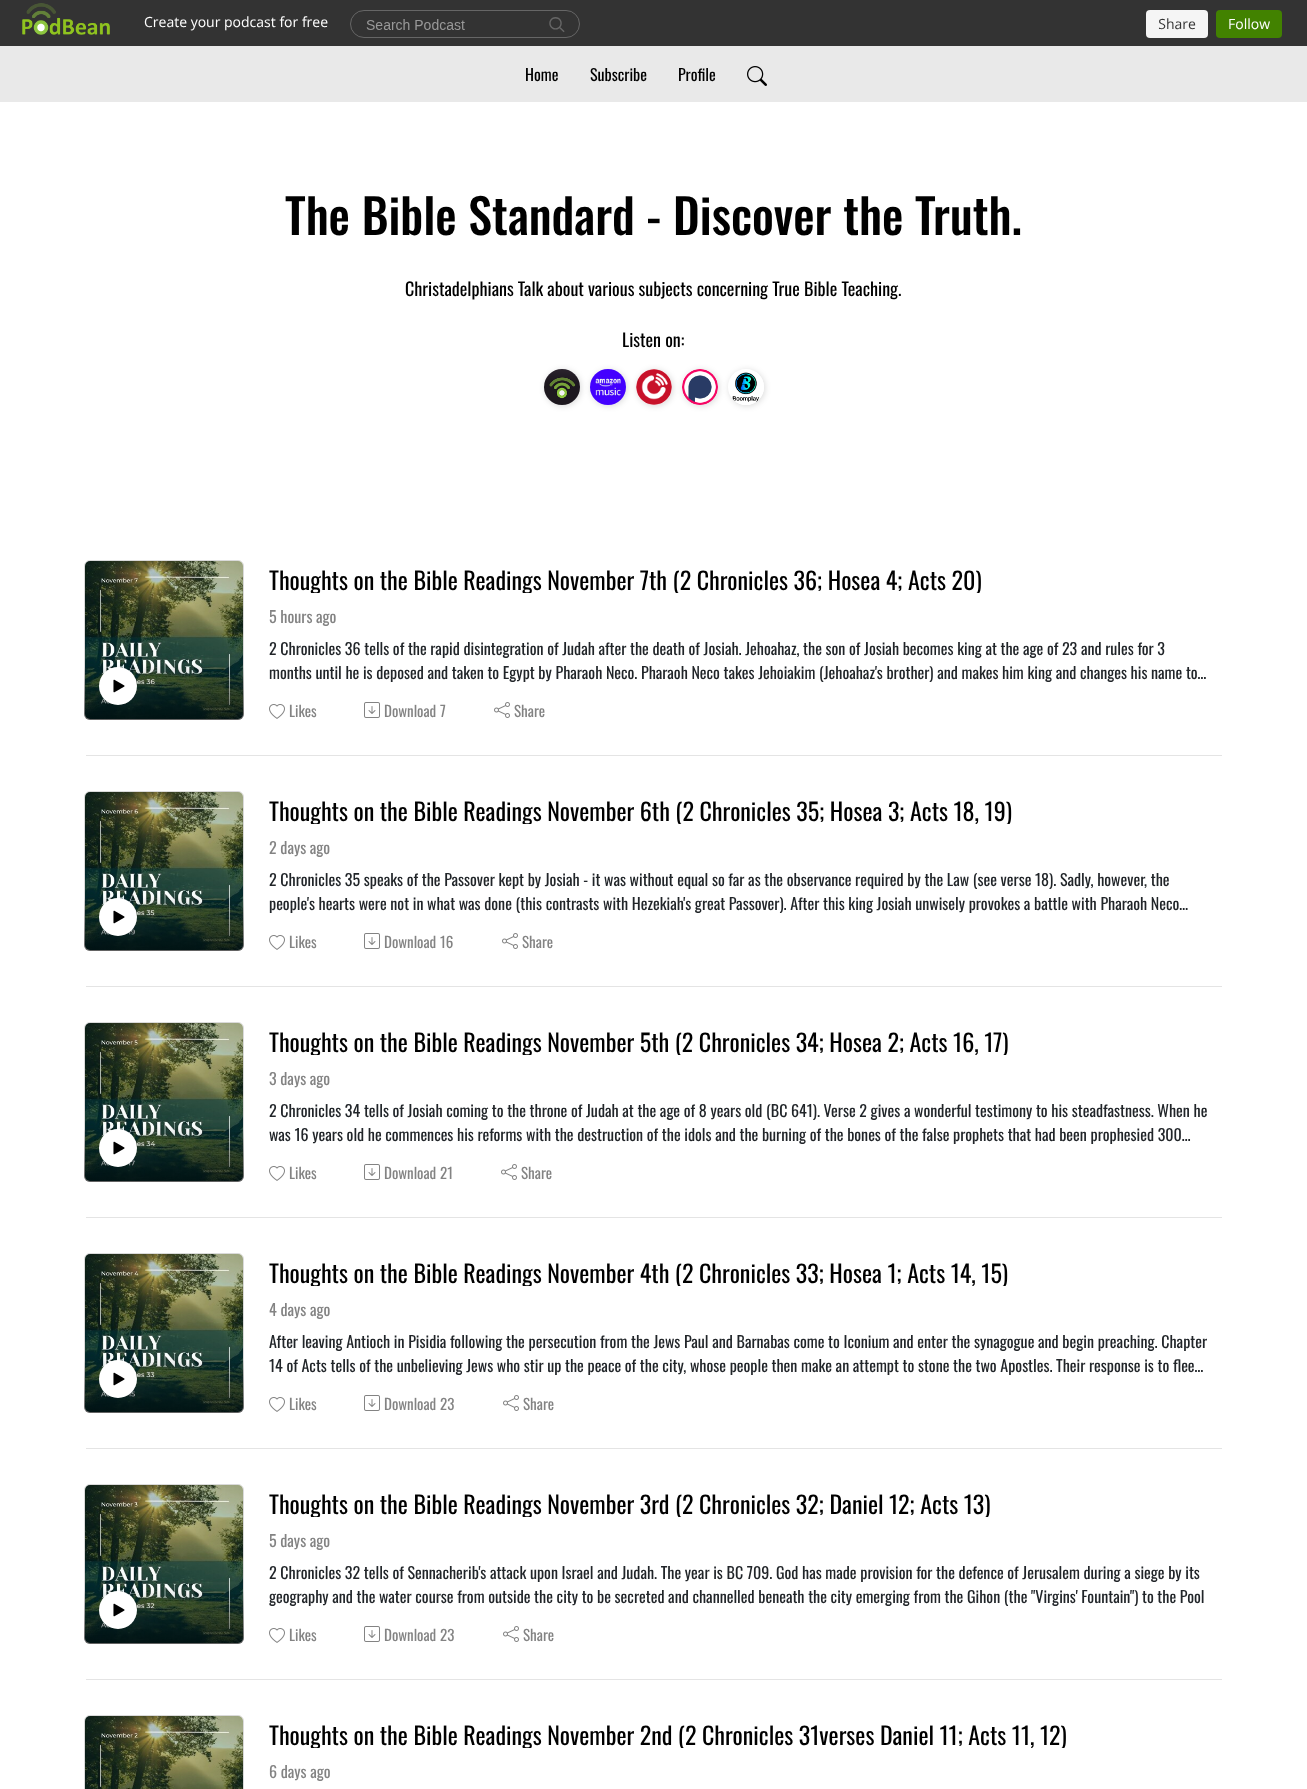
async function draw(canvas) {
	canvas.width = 1307;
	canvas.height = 1789;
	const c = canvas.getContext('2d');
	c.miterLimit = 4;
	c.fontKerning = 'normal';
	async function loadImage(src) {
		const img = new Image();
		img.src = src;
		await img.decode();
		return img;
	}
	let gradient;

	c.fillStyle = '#fff';
	c.fillRect(0, 0, 1307, 1789);
	c.fillStyle = '#333';
	c.fillRect(0, 0, 1307, 46);
	c.drawImage(await loadImage('img1.png'), 22, 3, 1260, 35);
	c.fillStyle = '#e9e9e9';
	c.fillRect(0, 46, 1307, 56);
	c.font = '16px Oswald';
	c.fillStyle = '#000';
	for (const [text, x, y] of [
		['Home', 525, 81],
		['Subscribe', 590, 81],
		['Profile', 678, 81],
	]) {
		c.fillText(text, x, y);
	}
	c.drawImage(await loadImage('img2.png'), 747, 66, 20, 20);
	c.font = '500 48px Oswald';
	c.fillText('The Bible Standard - Discover the Truth.', 285, 235);
	c.font = '18px Oswald';
	c.fillText('Christadelphians Talk about various subjects concerning True Bible Teaching.', 405, 296);
	c.fillText('Listen on:', 622, 347);
	c.fillStyle = '#00000026';
	c.filter = 'blur(3px)';
	c.beginPath();
	c.roundRect(545, 370, 36, 36, 18);
	c.fill();
	c.filter = 'none';
	c.drawImage(await loadImage('img3.png'), 544, 369, 36, 36);
	c.filter = 'blur(3px)';
	c.beginPath();
	c.roundRect(591, 370, 36, 36, 18);
	c.fill();
	c.filter = 'none';
	c.drawImage(await loadImage('img4.png'), 590, 369, 36, 36);
	c.save();
	c.beginPath();
	c.moveTo(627, 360);
	c.lineTo(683, 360);
	c.lineTo(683, 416);
	c.lineTo(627, 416);
	c.closePath();
	c.moveTo(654, 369);
	c.bezierCurveTo(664, 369, 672, 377, 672, 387);
	c.bezierCurveTo(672, 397, 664, 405, 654, 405);
	c.bezierCurveTo(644, 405, 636, 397, 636, 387);
	c.bezierCurveTo(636, 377, 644, 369, 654, 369);
	c.closePath();
	c.clip('evenodd');
	c.filter = 'blur(3px)';
	c.beginPath();
	c.roundRect(637, 370, 36, 36, 18);
	c.fill();
	c.filter = 'none';
	c.restore();
	c.drawImage(await loadImage('img5.png'), 636, 369, 36, 36);
	c.filter = 'blur(3px)';
	c.beginPath();
	c.roundRect(683, 370, 36, 36, 18);
	c.fill();
	c.filter = 'none';
	c.drawImage(await loadImage('img6.png'), 682, 369, 36, 36);
	c.save();
	c.beginPath();
	c.moveTo(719, 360);
	c.lineTo(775, 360);
	c.lineTo(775, 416);
	c.lineTo(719, 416);
	c.closePath();
	c.moveTo(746, 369);
	c.bezierCurveTo(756, 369, 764, 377, 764, 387);
	c.bezierCurveTo(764, 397, 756, 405, 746, 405);
	c.bezierCurveTo(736, 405, 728, 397, 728, 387);
	c.bezierCurveTo(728, 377, 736, 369, 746, 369);
	c.closePath();
	c.clip('evenodd');
	c.filter = 'blur(3px)';
	c.beginPath();
	c.roundRect(729, 370, 36, 36, 18);
	c.fill();
	c.filter = 'none';
	c.restore();
	c.drawImage(await loadImage('img7.png'), 731, 372, 33, 33);
	c.fillStyle = '#e4e4e4';
	c.fillRect(86, 755, 1136, 1);
	c.beginPath();
	c.roundRect(84.5, 560.5, 159, 159, 5.5);
	c.strokeStyle = '#dadada';
	c.stroke();
	c.drawImage(await loadImage('img8.png'), 85, 561, 158, 158);
	gradient = c.createLinearGradient(164, 664, 164, 720);
	gradient.addColorStop(0, '#00000000');
	gradient.addColorStop(1, '#0000008c');
	c.fillStyle = gradient;
	c.beginPath();
	c.roundRect(84, 664, 160, 56, 6);
	c.fill();
	c.fillStyle = '#fff';
	c.beginPath();
	c.arc(118, 686, 19, 0, 2 * Math.PI);
	c.fill();
	c.drawImage(await loadImage('img9.png'), 113, 679, 12, 14);
	c.save();
	c.beginPath();
	c.rect(269, 565, 939, 28);
	c.clip();
	c.font = '24px Oswald';
	c.fillStyle = '#000';
	c.fillText('Thoughts on the Bible Readings November 7th (2 Chronicles 36; Hosea 4; Acts 20)', 269, 590);
	c.restore();
	c.font = '16px Oswald';
	c.fillStyle = '#838383';
	c.fillText('5 hours ago', 269, 623);
	c.fillStyle = '#212529';
	c.fillText('2 Chronicles 36 tells of the rapid disintegration of Judah after the death of Josiah. Jehoahaz, the son of Josiah becomes king at the age of 23 and rules for 3', 269, 655);
	c.fillText('months until he is deposed and taken to Egypt by Pharaoh Neco. Pharaoh Neco takes Jehoiakim (Jehoahaz\'s brother) and makes him king and changes his name to…', 269, 679);
	c.drawImage(await loadImage('img10.png'), 269, 704, 16, 15);
	c.font = '15px Oswald';
	c.fillStyle = '#838383';
	c.fillText('Likes', 289, 717);
	c.drawImage(await loadImage('img11.png'), 364, 702, 16, 16);
	c.fillText('Download', 384, 717);
	c.fillText('7', 440, 717);
	c.drawImage(await loadImage('img12.png'), 494, 702, 16, 16);
	c.fillText('Share', 514, 717);
	c.fillStyle = '#e4e4e4';
	c.fillRect(86, 986, 1136, 1);
	c.beginPath();
	c.roundRect(84.5, 791.5, 159, 159, 5.5);
	c.stroke();
	c.drawImage(await loadImage('img13.png'), 85, 792, 158, 158);
	gradient = c.createLinearGradient(164, 895, 164, 951);
	gradient.addColorStop(0, '#00000000');
	gradient.addColorStop(1, '#0000008c');
	c.fillStyle = gradient;
	c.beginPath();
	c.roundRect(84, 895, 160, 56, 6);
	c.fill();
	c.fillStyle = '#fff';
	c.beginPath();
	c.arc(118, 917, 19, 0, 2 * Math.PI);
	c.fill();
	c.drawImage(await loadImage('img9.png'), 113, 910, 12, 14);
	c.save();
	c.beginPath();
	c.rect(269, 796, 939, 28);
	c.clip();
	c.font = '24px Oswald';
	c.fillStyle = '#000';
	c.fillText('Thoughts on the Bible Readings November 6th (2 Chronicles 35; Hosea 3; Acts 18, 19)', 269, 821);
	c.restore();
	c.font = '16px Oswald';
	c.fillStyle = '#838383';
	c.fillText('2 days ago', 269, 854);
	c.fillStyle = '#212529';
	c.fillText('2 Chronicles 35 speaks of the Passover kept by Josiah - it was without equal so far as the observance required by the Law (see verse 18). Sadly, however, the', 269, 886);
	c.fillText('people\'s hearts were not in what was done (this contrasts with Hezekiah\'s great Passover). After this king Josiah unwisely provokes a battle with Pharaoh Neco…', 269, 910);
	c.drawImage(await loadImage('img10.png'), 269, 935, 16, 15);
	c.font = '15px Oswald';
	c.fillStyle = '#838383';
	c.fillText('Likes', 289, 948);
	c.drawImage(await loadImage('img11.png'), 364, 933, 16, 16);
	c.fillText('Download', 384, 948);
	c.fillText('16', 440, 948);
	c.drawImage(await loadImage('img12.png'), 502, 933, 16, 16);
	c.fillText('Share', 522, 948);
	c.fillStyle = '#e4e4e4';
	c.fillRect(86, 1217, 1136, 1);
	c.beginPath();
	c.roundRect(84.5, 1022.5, 159, 159, 5.5);
	c.stroke();
	c.drawImage(await loadImage('img14.png'), 85, 1023, 158, 158);
	gradient = c.createLinearGradient(164, 1126, 164, 1182);
	gradient.addColorStop(0, '#00000000');
	gradient.addColorStop(1, '#0000008c');
	c.fillStyle = gradient;
	c.beginPath();
	c.roundRect(84, 1126, 160, 56, 6);
	c.fill();
	c.fillStyle = '#fff';
	c.beginPath();
	c.arc(118, 1148, 19, 0, 2 * Math.PI);
	c.fill();
	c.drawImage(await loadImage('img9.png'), 113, 1141, 12, 14);
	c.save();
	c.beginPath();
	c.rect(269, 1027, 939, 28);
	c.clip();
	c.font = '24px Oswald';
	c.fillStyle = '#000';
	c.fillText('Thoughts on the Bible Readings November 5th (2 Chronicles 34; Hosea 2; Acts 16, 17)', 269, 1052);
	c.restore();
	c.font = '16px Oswald';
	c.fillStyle = '#838383';
	c.fillText('3 days ago', 269, 1085);
	c.fillStyle = '#212529';
	c.fillText('2 Chronicles 34 tells of Josiah coming to the throne of Judah at the age of 8 years old (BC 641). Verse 2 gives a wonderful testimony to his steadfastness. When he', 269, 1117);
	c.fillText('was 16 years old he commences his reforms with the destruction of the idols and the burning of the bones of the false prophets that had been prophesied 300…', 269, 1141);
	c.drawImage(await loadImage('img10.png'), 269, 1166, 16, 15);
	c.font = '15px Oswald';
	c.fillStyle = '#838383';
	c.fillText('Likes', 289, 1179);
	c.drawImage(await loadImage('img11.png'), 364, 1164, 16, 16);
	c.fillText('Download', 384, 1179);
	c.fillText('21', 440, 1179);
	c.drawImage(await loadImage('img12.png'), 501, 1164, 16, 16);
	c.fillText('Share', 521, 1179);
	c.fillStyle = '#e4e4e4';
	c.fillRect(86, 1448, 1136, 1);
	c.beginPath();
	c.roundRect(84.5, 1253.5, 159, 159, 5.5);
	c.stroke();
	c.drawImage(await loadImage('img15.png'), 85, 1254, 158, 158);
	gradient = c.createLinearGradient(164, 1357, 164, 1413);
	gradient.addColorStop(0, '#00000000');
	gradient.addColorStop(1, '#0000008c');
	c.fillStyle = gradient;
	c.beginPath();
	c.roundRect(84, 1357, 160, 56, 6);
	c.fill();
	c.fillStyle = '#fff';
	c.beginPath();
	c.arc(118, 1379, 19, 0, 2 * Math.PI);
	c.fill();
	c.drawImage(await loadImage('img9.png'), 113, 1372, 12, 14);
	c.save();
	c.beginPath();
	c.rect(269, 1258, 939, 28);
	c.clip();
	c.font = '24px Oswald';
	c.fillStyle = '#000';
	c.fillText('Thoughts on the Bible Readings November 4th (2 Chronicles 33; Hosea 1; Acts 14, 15)', 269, 1283);
	c.restore();
	c.font = '16px Oswald';
	c.fillStyle = '#838383';
	c.fillText('4 days ago', 269, 1316);
	c.fillStyle = '#212529';
	c.fillText('After leaving Antioch in Pisidia following the persecution from the Jews Paul and Barnabas come to Iconium and enter the synagogue and begin preaching. Chapter', 269, 1348);
	c.fillText('14 of Acts tells of the unbelieving Jews who stir up the peace of the city, whose people then make an attempt to stone the two Apostles. Their response is to flee…', 269, 1372);
	c.drawImage(await loadImage('img10.png'), 269, 1397, 16, 15);
	c.font = '15px Oswald';
	c.fillStyle = '#838383';
	c.fillText('Likes', 289, 1410);
	c.drawImage(await loadImage('img11.png'), 364, 1395, 16, 16);
	c.fillText('Download', 384, 1410);
	c.fillText('23', 440, 1410);
	c.drawImage(await loadImage('img12.png'), 503, 1395, 16, 16);
	c.fillText('Share', 523, 1410);
	c.fillStyle = '#e4e4e4';
	c.fillRect(86, 1679, 1136, 1);
	c.beginPath();
	c.roundRect(84.5, 1484.5, 159, 159, 5.5);
	c.stroke();
	c.drawImage(await loadImage('img16.png'), 85, 1485, 158, 158);
	gradient = c.createLinearGradient(164, 1588, 164, 1644);
	gradient.addColorStop(0, '#00000000');
	gradient.addColorStop(1, '#0000008c');
	c.fillStyle = gradient;
	c.beginPath();
	c.roundRect(84, 1588, 160, 56, 6);
	c.fill();
	c.fillStyle = '#fff';
	c.beginPath();
	c.arc(118, 1610, 19, 0, 2 * Math.PI);
	c.fill();
	c.drawImage(await loadImage('img9.png'), 113, 1603, 12, 14);
	c.save();
	c.beginPath();
	c.rect(269, 1489, 939, 28);
	c.clip();
	c.font = '24px Oswald';
	c.fillStyle = '#000';
	c.fillText('Thoughts on the Bible Readings November 3rd (2 Chronicles 32; Daniel 12; Acts 13)', 269, 1514);
	c.restore();
	c.font = '16px Oswald';
	c.fillStyle = '#838383';
	c.fillText('5 days ago', 269, 1547);
	c.fillStyle = '#212529';
	c.fillText('2 Chronicles 32 tells of Sennacherib\'s attack upon Israel and Judah. The year is BC 709. God has made provision for the defence of Jerusalem during a siege by its', 269, 1579);
	c.fillText('geography and the water course from outside the city to be secreted and channelled beneath the city emerging from the Gihon (the "Virgins\' Fountain") to the Pool', 269, 1603);
	c.drawImage(await loadImage('img10.png'), 269, 1628, 16, 15);
	c.font = '15px Oswald';
	c.fillStyle = '#838383';
	c.fillText('Likes', 289, 1641);
	c.drawImage(await loadImage('img11.png'), 364, 1626, 16, 16);
	c.fillText('Download', 384, 1641);
	c.fillText('23', 440, 1641);
	c.drawImage(await loadImage('img12.png'), 503, 1626, 16, 16);
	c.fillText('Share', 523, 1641);
	c.beginPath();
	c.roundRect(84.5, 1715.5, 159, 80, 5.5);
	c.stroke();
	c.drawImage(await loadImage('img17.png'), 85, 1716, 158, 73);
	c.save();
	c.beginPath();
	c.rect(269, 1720, 939, 28);
	c.clip();
	c.font = '24px Oswald';
	c.fillStyle = '#000';
	c.fillText('Thoughts on the Bible Readings November 2nd (2 Chronicles 31verses Daniel 11; Acts 11, 12)', 269, 1745);
	c.restore();
	c.font = '16px Oswald';
	c.fillText('6 days ago', 269, 1778);
}

draw(document.querySelector('canvas'));
